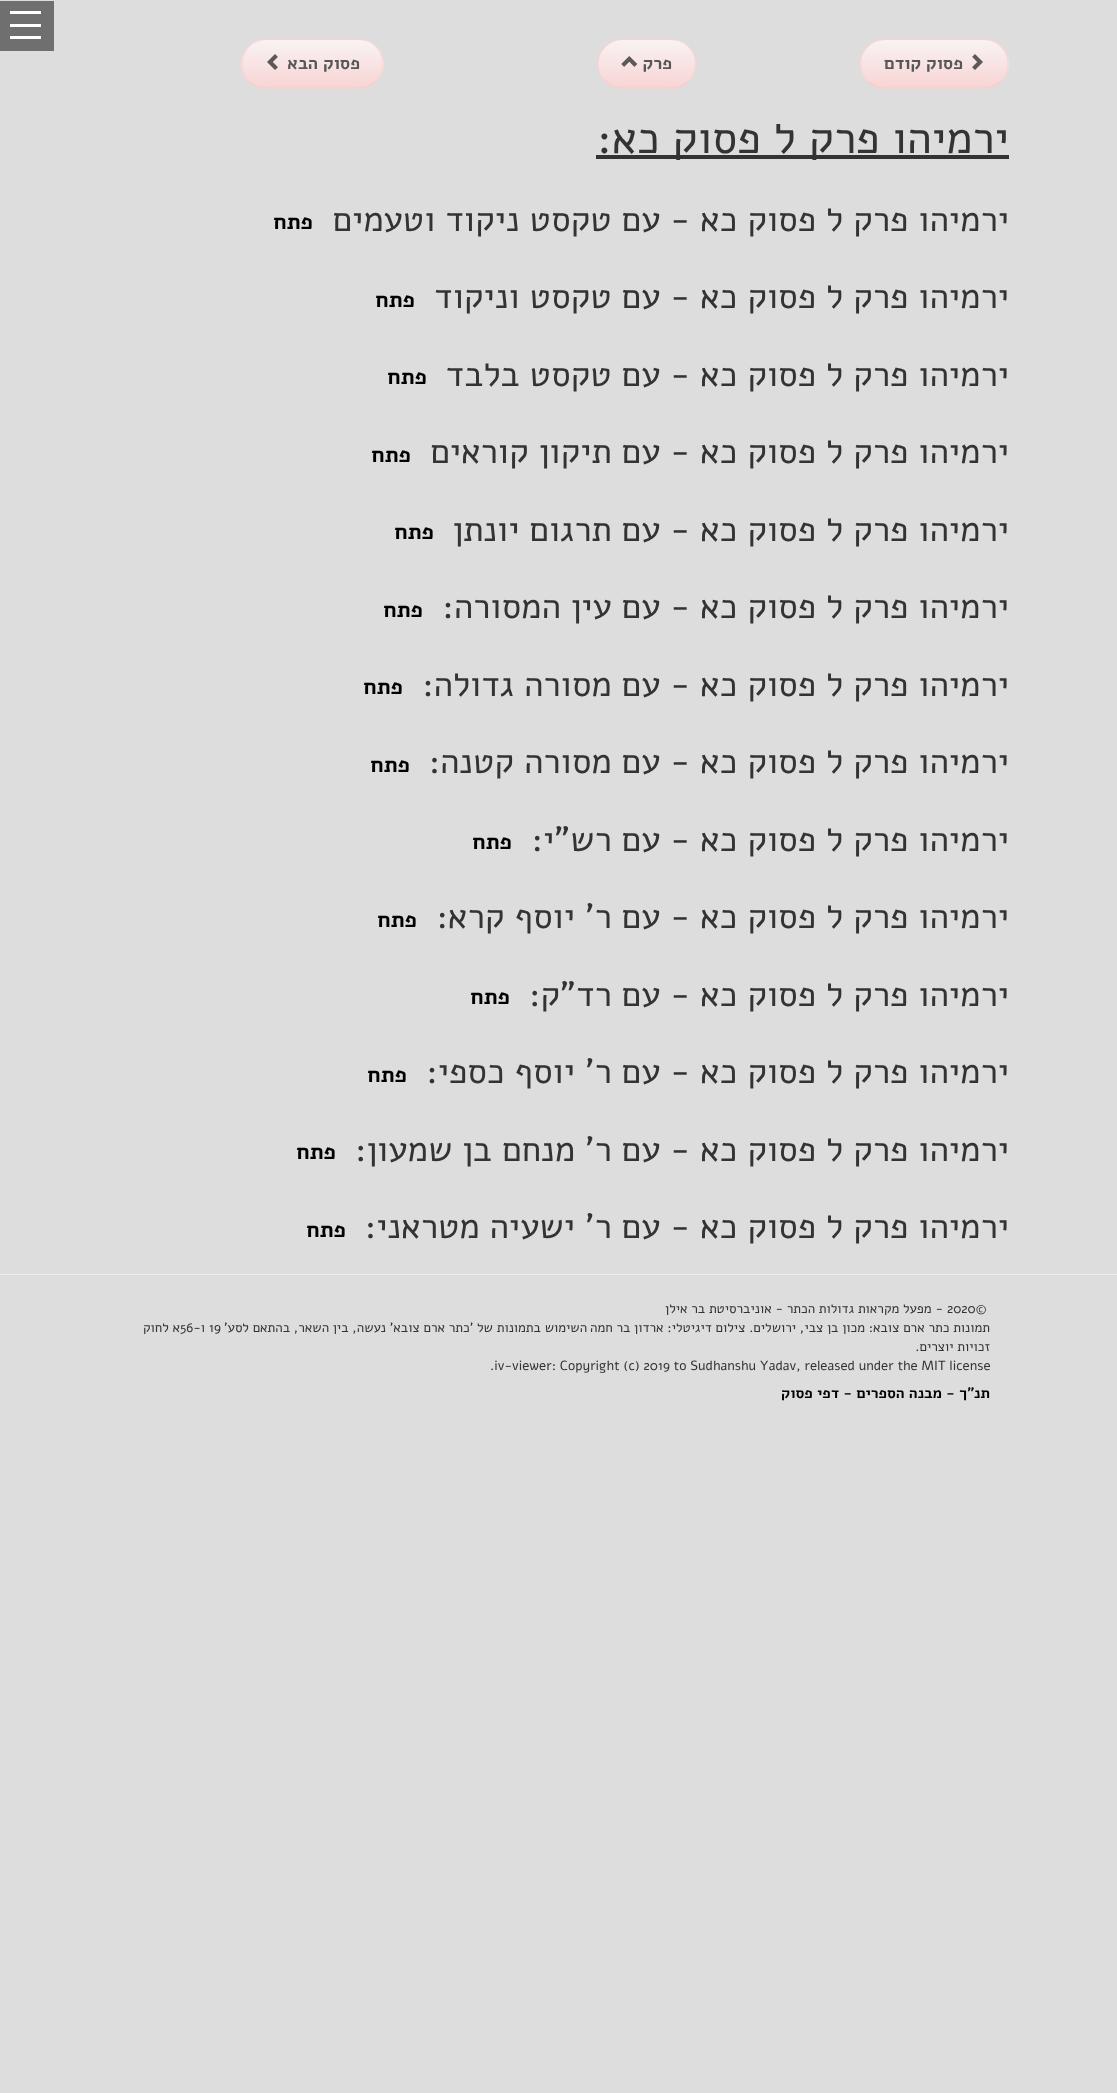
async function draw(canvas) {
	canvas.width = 1117;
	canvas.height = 2093;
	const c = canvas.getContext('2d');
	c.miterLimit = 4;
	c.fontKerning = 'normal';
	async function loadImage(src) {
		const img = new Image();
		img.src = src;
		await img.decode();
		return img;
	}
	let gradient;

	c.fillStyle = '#ddd';
	c.fillRect(0, 0, 1117, 2093);
	for (const [x, y, w, h, color] of [
		[0, 1, 54, 50, '#6f6f6f'],
		[10, 24, 31, 3, '#fff'],
		[10, 11, 31, 3, '#fff'],
		[10, 36, 31, 3, '#fff'],
	]) {
		c.fillStyle = color;
		c.fillRect(x, y, w, h);
	}
	c.fillStyle = '#f8d4d4';
	c.beginPath();
	c.roundRect(860, 39, 149, 50, 25);
	c.fill();
	c.save();
	c.beginPath();
	c.roundRect(860, 39, 149, 50, 25);
	c.clip();
	gradient = c.createLinearGradient(934, 40, 934, 88);
	gradient.addColorStop(0, '#f8f3f3');
	gradient.addColorStop(1, '#f8d4d4');
	c.fillStyle = gradient;
	c.fillRect(860, 40, 149, 48);
	c.restore();
	c.beginPath();
	c.moveTo(1001, 81);
	c.bezierCurveTo(996.5, 85.5, 990, 88, 984, 88);
	c.lineTo(885, 88);
	c.bezierCurveTo(878.5, 88, 872.5, 85.5, 868, 81);
	c.strokeStyle = '#f8cccc';
	c.lineWidth = 1.2;
	c.stroke();
	c.beginPath();
	c.moveTo(868, 81);
	c.bezierCurveTo(863, 76.5, 860.5, 70, 860.5, 64);
	c.bezierCurveTo(860.5, 57.5, 863, 51, 868, 46.5);
	c.bezierCurveTo(872.5, 42, 878.5, 39.5, 885, 39.5);
	c.lineTo(984, 39.5);
	c.bezierCurveTo(990, 39.5, 996.5, 42, 1001, 46.5);
	c.bezierCurveTo(1005.5, 51, 1008, 57.5, 1008, 63.5);
	c.bezierCurveTo(1008, 70, 1005.5, 76.5, 1001, 81);
	c.strokeStyle = '#f8d4d4';
	c.stroke();
	c.drawImage(await loadImage('img1.png'), 972, 54, 11, 16);
	c.direction = 'rtl';
	c.font = 'bold 17.5px Alef';
	c.fillStyle = '#575757';
	c.fillText('פסוק קודם', 963, 69);
	c.fillStyle = '#f8d4d4';
	c.beginPath();
	c.roundRect(598, 39, 98, 50, 25);
	c.fill();
	c.save();
	c.beginPath();
	c.roundRect(598, 39, 98, 50, 25);
	c.clip();
	gradient = c.createLinearGradient(647, 40, 647, 88);
	gradient.addColorStop(0, '#f8f3f3');
	gradient.addColorStop(1, '#f8d4d4');
	c.fillStyle = gradient;
	c.fillRect(598, 40, 98, 48);
	c.restore();
	c.beginPath();
	c.moveTo(688.5, 81);
	c.bezierCurveTo(684, 85.5, 677.5, 88, 671, 88);
	c.lineTo(622.5, 88);
	c.bezierCurveTo(616, 88, 610, 85.5, 605.5, 81);
	c.strokeStyle = '#f8cccc';
	c.stroke();
	c.beginPath();
	c.moveTo(605.5, 81);
	c.bezierCurveTo(600.5, 76.5, 598, 70, 598, 64);
	c.bezierCurveTo(598, 57.5, 600.5, 51, 605.5, 46.5);
	c.bezierCurveTo(610, 42, 616, 39.5, 622.5, 39.5);
	c.lineTo(671, 39.5);
	c.bezierCurveTo(677.5, 39.5, 684, 42, 688.5, 46.5);
	c.bezierCurveTo(693, 51, 695.5, 57.5, 695.5, 63.5);
	c.bezierCurveTo(695.5, 70, 693, 76.5, 688.5, 81);
	c.strokeStyle = '#f8d4d4';
	c.stroke();
	c.fillStyle = '#575757';
	c.fillText('פרק', 672, 69);
	c.drawImage(await loadImage('img2.png'), 621, 56, 17, 11);
	c.fillStyle = '#f8d4d4';
	c.beginPath();
	c.roundRect(241, 39, 143, 50, 25);
	c.fill();
	c.save();
	c.beginPath();
	c.roundRect(241, 39, 143, 50, 25);
	c.clip();
	gradient = c.createLinearGradient(313, 40, 313, 88);
	gradient.addColorStop(0, '#f8f3f3');
	gradient.addColorStop(1, '#f8d4d4');
	c.fillStyle = gradient;
	c.fillRect(241, 40, 143, 48);
	c.restore();
	c.beginPath();
	c.moveTo(376, 81);
	c.bezierCurveTo(371.5, 85.5, 365, 88, 359, 88);
	c.lineTo(266, 88);
	c.bezierCurveTo(260, 88, 253.5, 85.5, 249, 81);
	c.strokeStyle = '#f8cccc';
	c.stroke();
	c.beginPath();
	c.moveTo(249, 81);
	c.bezierCurveTo(244.5, 76.5, 242, 70, 242, 64);
	c.bezierCurveTo(242, 57.5, 244.5, 51, 249, 46.5);
	c.bezierCurveTo(253.5, 42, 260, 39.5, 266, 39.5);
	c.lineTo(359, 39.5);
	c.bezierCurveTo(365, 39.5, 371.5, 42, 376, 46.5);
	c.bezierCurveTo(380.5, 51, 383, 57.5, 383, 63.5);
	c.bezierCurveTo(383, 70, 380.5, 76.5, 376, 81);
	c.strokeStyle = '#f8d4d4';
	c.stroke();
	c.fillStyle = '#575757';
	c.fillText('פסוק הבא', 360, 69);
	c.drawImage(await loadImage('img3.png'), 267, 54, 11, 16);
	c.fillStyle = '#333';
	c.fillRect(596, 155, 413, 4);
	c.font = '45px Alef';
	c.fillText('ירמיהו פרק ל פסוק כא:', 1009, 153);
	c.font = '35px Alef';
	c.fillText('ירמיהו פרק ל פסוק כא - עם טקסט ניקוד וטעמים', 1009, 231);
	c.font = 'bold 22px Alef';
	c.fillStyle = '#000';
	c.fillText('פתח', 313, 229);
	c.font = '35px Alef';
	c.fillStyle = '#333';
	c.fillText('ירמיהו פרק ל פסוק כא - עם טקסט וניקוד', 1009, 308);
	c.font = 'bold 22px Alef';
	c.fillStyle = '#000';
	c.fillText('פתח', 415, 307);
	c.font = '35px Alef';
	c.fillStyle = '#333';
	c.fillText('ירמיהו פרק ל פסוק כא - עם טקסט בלבד', 1009, 386);
	c.font = 'bold 22px Alef';
	c.fillStyle = '#000';
	c.fillText('פתח', 427, 384);
	c.font = '35px Alef';
	c.fillStyle = '#333';
	c.fillText('ירמיהו פרק ל פסוק כא - עם תיקון קוראים', 1009, 463);
	c.font = 'bold 22px Alef';
	c.fillStyle = '#000';
	c.fillText('פתח', 411, 462);
	c.font = '35px Alef';
	c.fillStyle = '#333';
	c.fillText('ירמיהו פרק ל פסוק כא - עם תרגום יונתן', 1009, 541);
	c.font = 'bold 22px Alef';
	c.fillStyle = '#000';
	c.fillText('פתח', 434, 539);
	c.font = '35px Alef';
	c.fillStyle = '#333';
	c.fillText('ירמיהו פרק ל פסוק כא - עם עין המסורה:', 1009, 618);
	c.font = 'bold 22px Alef';
	c.fillStyle = '#000';
	c.fillText('פתח', 423, 617);
	c.font = '35px Alef';
	c.fillStyle = '#333';
	c.fillText('ירמיהו פרק ל פסוק כא - עם מסורה גדולה:', 1009, 696);
	c.font = 'bold 22px Alef';
	c.fillStyle = '#000';
	c.fillText('פתח', 403, 694);
	c.font = '35px Alef';
	c.fillStyle = '#333';
	c.fillText('ירמיהו פרק ל פסוק כא - עם מסורה קטנה:', 1009, 773);
	c.font = 'bold 22px Alef';
	c.fillStyle = '#000';
	c.fillText('פתח', 410, 772);
	c.font = '35px Alef';
	c.fillStyle = '#333';
	c.fillText('ירמיהו פרק ל פסוק כא - עם רש"י:', 1009, 851);
	c.font = 'bold 22px Alef';
	c.fillStyle = '#000';
	c.fillText('פתח', 512, 849);
	c.font = '35px Alef';
	c.fillStyle = '#333';
	c.fillText('ירמיהו פרק ל פסוק כא - עם ר\' יוסף קרא:', 1009, 928);
	c.font = 'bold 22px Alef';
	c.fillStyle = '#000';
	c.fillText('פתח', 417, 927);
	c.font = '35px Alef';
	c.fillStyle = '#333';
	c.fillText('ירמיהו פרק ל פסוק כא - עם רד"ק:', 1009, 1006);
	c.font = 'bold 22px Alef';
	c.fillStyle = '#000';
	c.fillText('פתח', 510, 1004);
	c.font = '35px Alef';
	c.fillStyle = '#333';
	c.fillText('ירמיהו פרק ל פסוק כא - עם ר\' יוסף כספי:', 1009, 1083);
	c.font = 'bold 22px Alef';
	c.fillStyle = '#000';
	c.fillText('פתח', 407, 1082);
	c.font = '35px Alef';
	c.fillStyle = '#333';
	c.fillText('ירמיהו פרק ל פסוק כא - עם ר\' מנחם בן שמעון:', 1009, 1161);
	c.font = 'bold 22px Alef';
	c.fillStyle = '#000';
	c.fillText('פתח', 336, 1159);
	c.font = '35px Alef';
	c.fillStyle = '#333';
	c.fillText('ירמיהו פרק ל פסוק כא - עם ר\' ישעיה מטראני:', 1009, 1238);
	c.font = 'bold 22px Alef';
	c.fillStyle = '#000';
	c.fillText('פתח', 346, 1237);
	c.fillStyle = '#eee';
	c.fillRect(0, 1274, 1117, 1);
	c.direction = 'ltr';
	c.font = '13.35px Alef';
	c.fillStyle = '#333';
	c.fillText('2020©', 947, 1313);
	c.direction = 'rtl';
	for (const [text, x, y] of [
		['- מפעל מקראות גדולות הכתר - אוניברסיטת בר אילן', 943, 1313],
		['תמונות כתר ארם צובא: מכון בן צבי, ירושלים. צילום דיגיטלי: ארדון בר חמה', 990, 1332],
		['השימוש בתמונות של \'כתר ארם צובא\' נעשה, בין השאר, בהתאם לסע\'', 587, 1332],
	]) {
		c.fillText(text, x, y);
	}
	c.direction = 'ltr';
	c.fillText('19', 209, 1332);
	c.direction = 'rtl';
	c.fillText('ו-', 205, 1332);
	c.direction = 'ltr';
	c.fillText('56', 180, 1332);
	c.direction = 'rtl';
	c.fillText('א לחוק', 180, 1332);
	c.fillText('זכויות יוצרים.', 990, 1351);
	c.direction = 'ltr';
	c.fillText('.iv-viewer: Copyright (c) 2019 to Sudhanshu Yadav, released under the MIT license', 490, 1370);
	c.direction = 'rtl';
	c.font = 'bold 15px Alef';
	c.fillStyle = '#000';
	c.fillText('תנ"ך - מבנה הספרים - דפי פסוק', 990, 1398);
}

draw(document.querySelector('canvas'));
